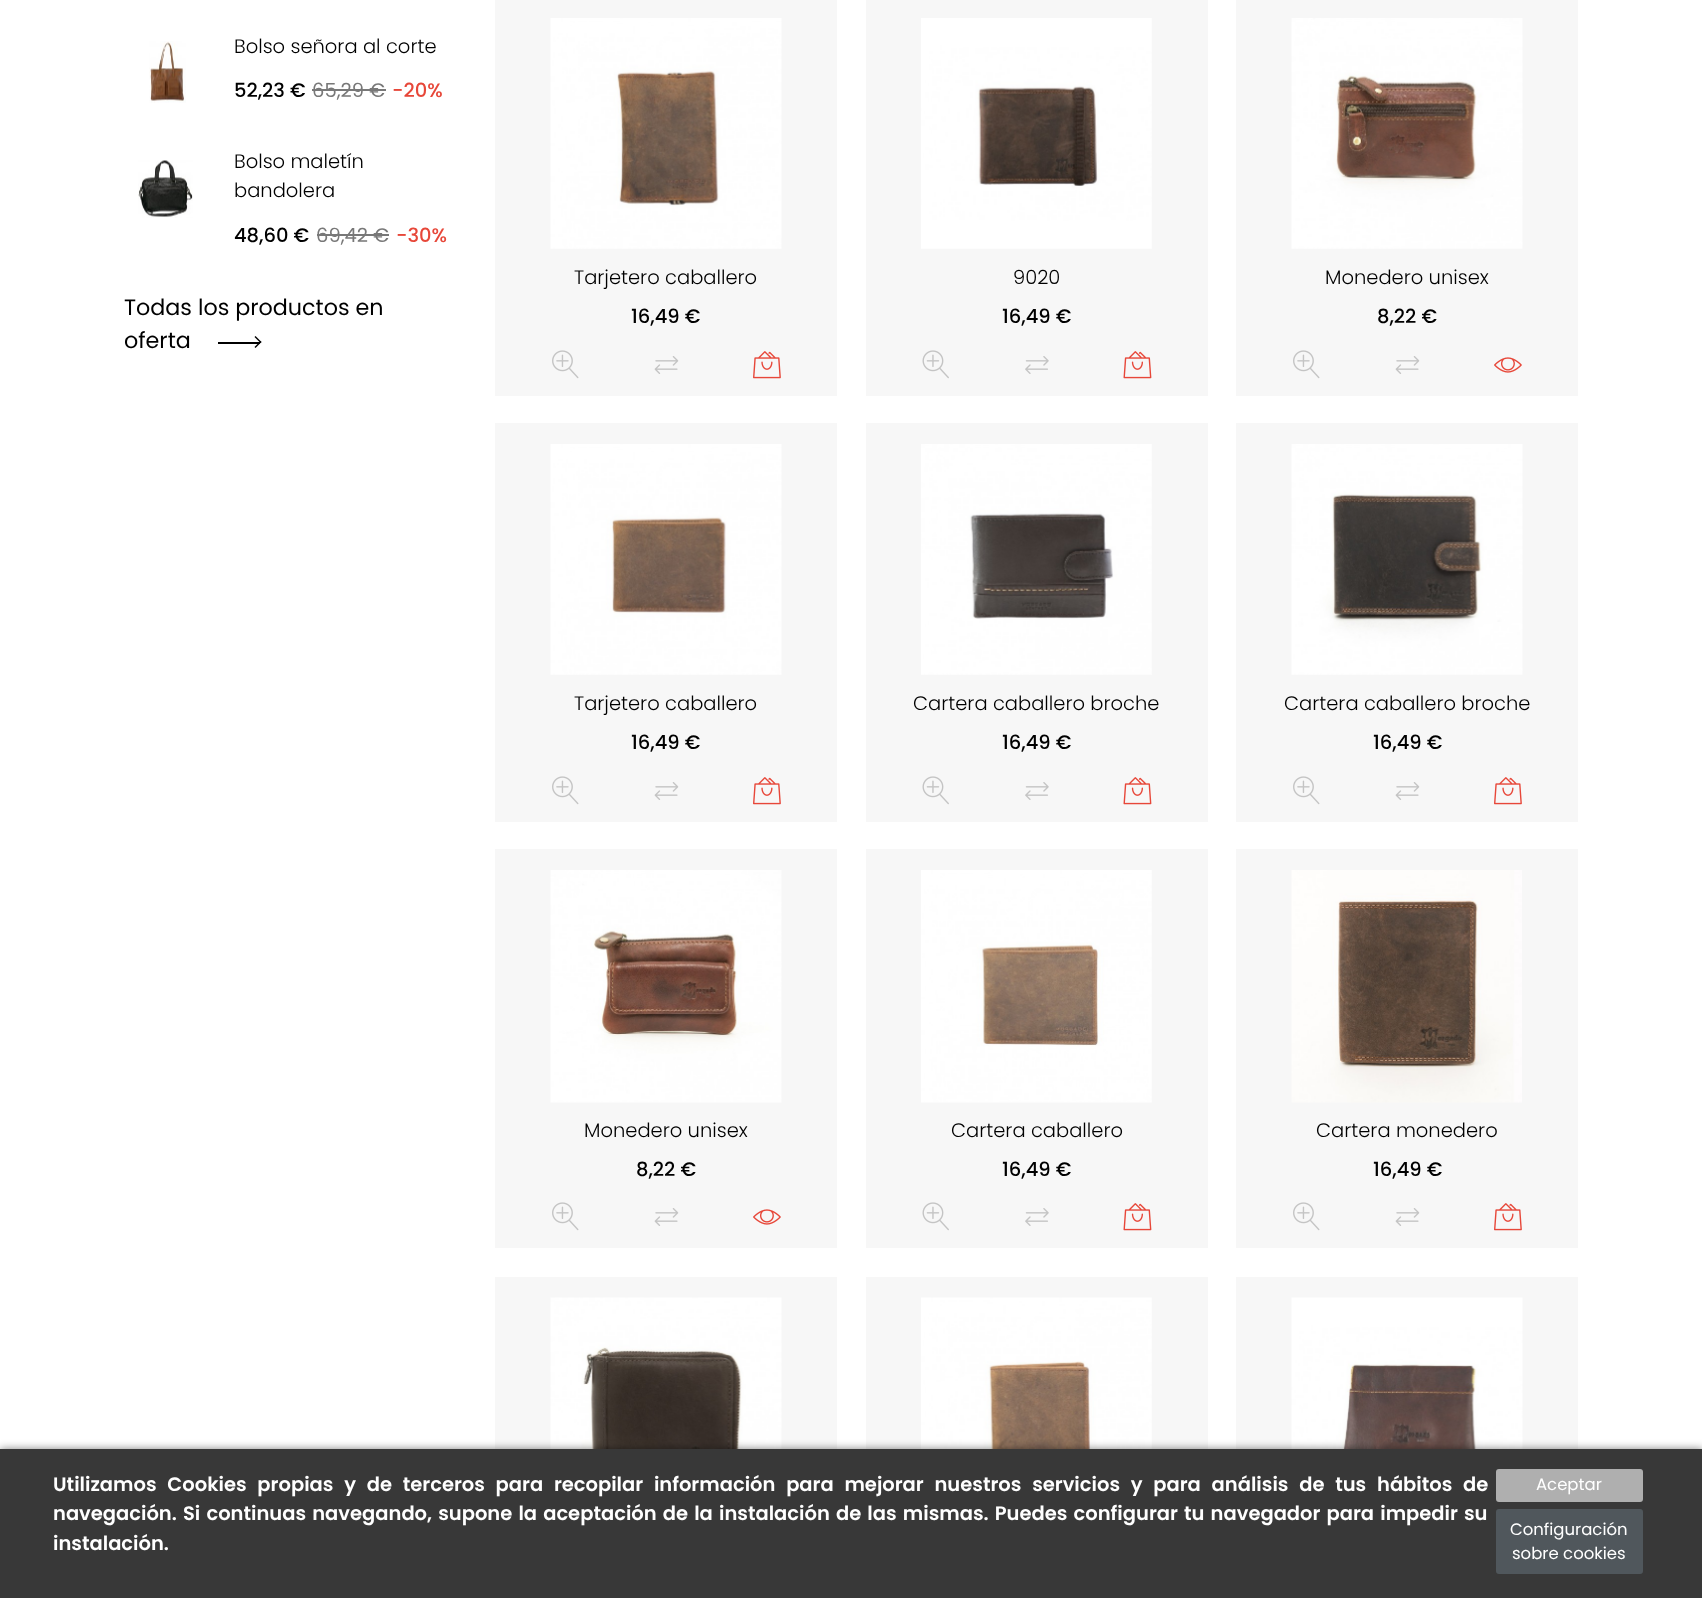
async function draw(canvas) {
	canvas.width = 1702;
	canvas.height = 1598;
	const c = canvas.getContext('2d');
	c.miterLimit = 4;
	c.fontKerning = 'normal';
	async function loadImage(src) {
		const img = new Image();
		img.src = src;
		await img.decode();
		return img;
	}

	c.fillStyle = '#fff';
	c.fillRect(0, 0, 1702, 1598);
	c.drawImage(await loadImage('img1.png'), 149, 41, 37, 62);
	c.font = '300 19.5px Poppins';
	c.fillStyle = '#000';
	c.fillText('Bolso señora al corte', 234, 53);
	c.font = '500 19.5px Poppins';
	c.fillText('52,23 €', 234, 97);
	c.font = '19.5px Poppins';
	c.fillStyle = '#787878';
	c.fillText('65,29 €', 312, 97);
	c.fillRect(312, 89, 74, 2);
	c.font = '500 19.5px Poppins';
	c.fillStyle = '#e74739';
	c.fillText('-20%', 392, 97);
	c.drawImage(await loadImage('img2.png'), 138, 160, 55, 58);
	c.font = '300 19.5px Poppins';
	c.fillStyle = '#000';
	c.fillText('Bolso maletín', 234, 168);
	c.fillText('bandolera', 234, 197);
	c.font = '500 19.5px Poppins';
	c.fillText('48,60 €', 234, 242);
	c.font = '19.5px Poppins';
	c.fillStyle = '#787878';
	c.fillText('69,42 €', 316, 242);
	c.fillRect(317, 234, 72, 2);
	c.font = '500 19.5px Poppins';
	c.fillStyle = '#e74739';
	c.fillText('-30%', 396, 242);
	c.font = '22.25px Poppins';
	c.fillStyle = '#000';
	c.fillText('Todas los productos en', 124, 315);
	c.fillText('oferta', 124, 348);
	c.fillRect(218, 342, 42, 2);
	c.beginPath();
	c.moveTo(255.5, 336);
	c.lineTo(261.5, 342);
	c.lineTo(260.5, 343);
	c.lineTo(254.5, 337);
	c.closePath();
	c.fill();
	c.beginPath();
	c.moveTo(260.5, 341);
	c.lineTo(261.5, 342);
	c.lineTo(255.5, 348);
	c.lineTo(254.5, 347);
	c.closePath();
	c.fill();
	c.fillStyle = '#f7f7f7';
	c.fillRect(495, 0, 342, 396);
	c.drawImage(await loadImage('img3.png'), 550, 18, 232, 231);
	c.drawImage(await loadImage('img4.png'), 552, 350, 27, 29);
	c.drawImage(await loadImage('img5.png'), 654, 356, 25, 18);
	c.drawImage(await loadImage('img6.png'), 753, 351, 28, 28);
	c.font = '300 19.5px Poppins';
	c.fillStyle = '#000';
	c.fillText('Tarjetero caballero', 574, 284);
	c.font = '500 19.5px Poppins';
	c.fillText('16,49 €', 631, 323);
	c.fillStyle = '#f7f7f7';
	c.fillRect(866, 0, 342, 396);
	c.drawImage(await loadImage('img7.png'), 921, 18, 231, 231);
	c.drawImage(await loadImage('img8.png'), 922, 350, 27, 29);
	c.drawImage(await loadImage('img9.png'), 1025, 356, 24, 18);
	c.drawImage(await loadImage('img10.png'), 1123, 351, 29, 28);
	c.font = '300 19.5px Poppins';
	c.fillStyle = '#000';
	c.fillText('9020', 1013, 284);
	c.font = '500 19.5px Poppins';
	c.fillText('16,49 €', 1002, 323);
	c.fillStyle = '#f7f7f7';
	c.fillRect(1236, 0, 342, 396);
	c.drawImage(await loadImage('img11.png'), 1291, 18, 232, 231);
	c.drawImage(await loadImage('img4.png'), 1293, 350, 27, 29);
	c.drawImage(await loadImage('img5.png'), 1395, 356, 25, 18);
	c.drawImage(await loadImage('img12.png'), 1494, 357, 28, 16);
	c.font = '300 19.5px Poppins';
	c.fillStyle = '#000';
	c.fillText('Monedero unisex', 1325, 284);
	c.font = '500 19.5px Poppins';
	c.fillText('8,22 €', 1377, 323);
	c.fillStyle = '#f7f7f7';
	c.fillRect(495, 423, 342, 399);
	c.drawImage(await loadImage('img13.png'), 550, 444, 232, 231);
	c.drawImage(await loadImage('img4.png'), 552, 776, 27, 29);
	c.drawImage(await loadImage('img5.png'), 654, 782, 25, 18);
	c.drawImage(await loadImage('img6.png'), 753, 777, 28, 28);
	c.font = '300 19.5px Poppins';
	c.fillStyle = '#000';
	c.fillText('Tarjetero caballero', 574, 710);
	c.font = '500 19.5px Poppins';
	c.fillText('16,49 €', 631, 749);
	c.fillStyle = '#f7f7f7';
	c.fillRect(866, 423, 342, 399);
	c.drawImage(await loadImage('img14.png'), 921, 444, 231, 231);
	c.drawImage(await loadImage('img8.png'), 922, 776, 27, 29);
	c.drawImage(await loadImage('img9.png'), 1025, 782, 24, 18);
	c.drawImage(await loadImage('img10.png'), 1123, 777, 29, 28);
	c.font = '300 19.5px Poppins';
	c.fillStyle = '#000';
	c.fillText('Cartera caballero broche', 913, 710);
	c.font = '500 19.5px Poppins';
	c.fillText('16,49 €', 1002, 749);
	c.fillStyle = '#f7f7f7';
	c.fillRect(1236, 423, 342, 399);
	c.drawImage(await loadImage('img15.png'), 1291, 444, 232, 231);
	c.drawImage(await loadImage('img4.png'), 1293, 776, 27, 29);
	c.drawImage(await loadImage('img5.png'), 1395, 782, 25, 18);
	c.drawImage(await loadImage('img6.png'), 1494, 777, 28, 28);
	c.font = '300 19.5px Poppins';
	c.fillStyle = '#000';
	c.fillText('Cartera caballero broche', 1284, 710);
	c.font = '500 19.5px Poppins';
	c.fillText('16,49 €', 1373, 749);
	c.fillStyle = '#f7f7f7';
	c.fillRect(495, 849, 342, 399);
	c.drawImage(await loadImage('img16.png'), 550, 870, 232, 233);
	c.drawImage(await loadImage('img4.png'), 552, 1202, 27, 29);
	c.drawImage(await loadImage('img5.png'), 654, 1208, 25, 18);
	c.drawImage(await loadImage('img12.png'), 753, 1209, 28, 16);
	c.font = '300 19.5px Poppins';
	c.fillStyle = '#000';
	c.fillText('Monedero unisex', 584, 1137);
	c.font = '500 19.5px Poppins';
	c.fillText('8,22 €', 636, 1176);
	c.fillStyle = '#f7f7f7';
	c.fillRect(866, 849, 342, 399);
	c.drawImage(await loadImage('img17.png'), 921, 870, 231, 233);
	c.drawImage(await loadImage('img8.png'), 922, 1202, 27, 29);
	c.drawImage(await loadImage('img9.png'), 1025, 1208, 24, 18);
	c.drawImage(await loadImage('img10.png'), 1123, 1203, 29, 28);
	c.font = '300 19.5px Poppins';
	c.fillStyle = '#000';
	c.fillText('Cartera caballero', 951, 1137);
	c.font = '500 19.5px Poppins';
	c.fillText('16,49 €', 1002, 1176);
	c.fillStyle = '#f7f7f7';
	c.fillRect(1236, 849, 342, 399);
	c.drawImage(await loadImage('img18.png'), 1291, 870, 231, 233);
	c.drawImage(await loadImage('img4.png'), 1293, 1202, 27, 29);
	c.drawImage(await loadImage('img5.png'), 1395, 1208, 25, 18);
	c.drawImage(await loadImage('img6.png'), 1494, 1203, 28, 28);
	c.font = '300 19.5px Poppins';
	c.fillStyle = '#000';
	c.fillText('Cartera monedero', 1316, 1137);
	c.font = '500 19.5px Poppins';
	c.fillText('16,49 €', 1373, 1176);
	c.fillStyle = '#f7f7f7';
	c.fillRect(495, 1277, 342, 172);
	c.drawImage(await loadImage('img19.png'), 550, 1297, 232, 152);
	c.fillRect(866, 1277, 342, 172);
	c.drawImage(await loadImage('img20.png'), 921, 1297, 231, 152);
	c.fillRect(1236, 1277, 342, 172);
	c.drawImage(await loadImage('img21.png'), 1291, 1297, 232, 152);
	c.fillStyle = '#00000080';
	c.filter = 'blur(4px)';
	c.beginPath();
	c.rect(0, 1449, 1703, 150);
	c.fill();
	c.filter = 'none';
	c.fillStyle = '#383838';
	c.fillRect(0, 1449, 1702, 149);
	c.wordSpacing = '6.1px';
	c.font = '600 19.5px Poppins';
	c.fillStyle = '#fff';
	c.fillText('Utilizamos Cookies propias y de terceros para recopilar información para mejorar nuestros servicios y para análisis de tus hábitos de', 53, 1491);
	c.wordSpacing = '1.5px';
	c.fillText('navegación. Si continuas navegando, supone la aceptación de la instalación de las mismas. Puedes configurar tu navegador para impedir su', 53, 1520);
	c.wordSpacing = '0px';
	c.fillText('instalación.', 53, 1550);
	c.fillStyle = '#afafaf';
	c.beginPath();
	c.roundRect(1496, 1469, 147, 33, 3);
	c.fill();
	c.font = '16.5px Poppins';
	c.fillStyle = '#fff';
	c.fillText('Aceptar', 1536, 1490);
	c.fillStyle = '#50575c';
	c.beginPath();
	c.roundRect(1496, 1509, 147, 65, 3);
	c.fill();
	c.fillStyle = '#fff';
	c.fillText('Configuración', 1510, 1535);
	c.fillText('sobre cookies', 1512, 1559);
}

draw(document.querySelector('canvas'));
